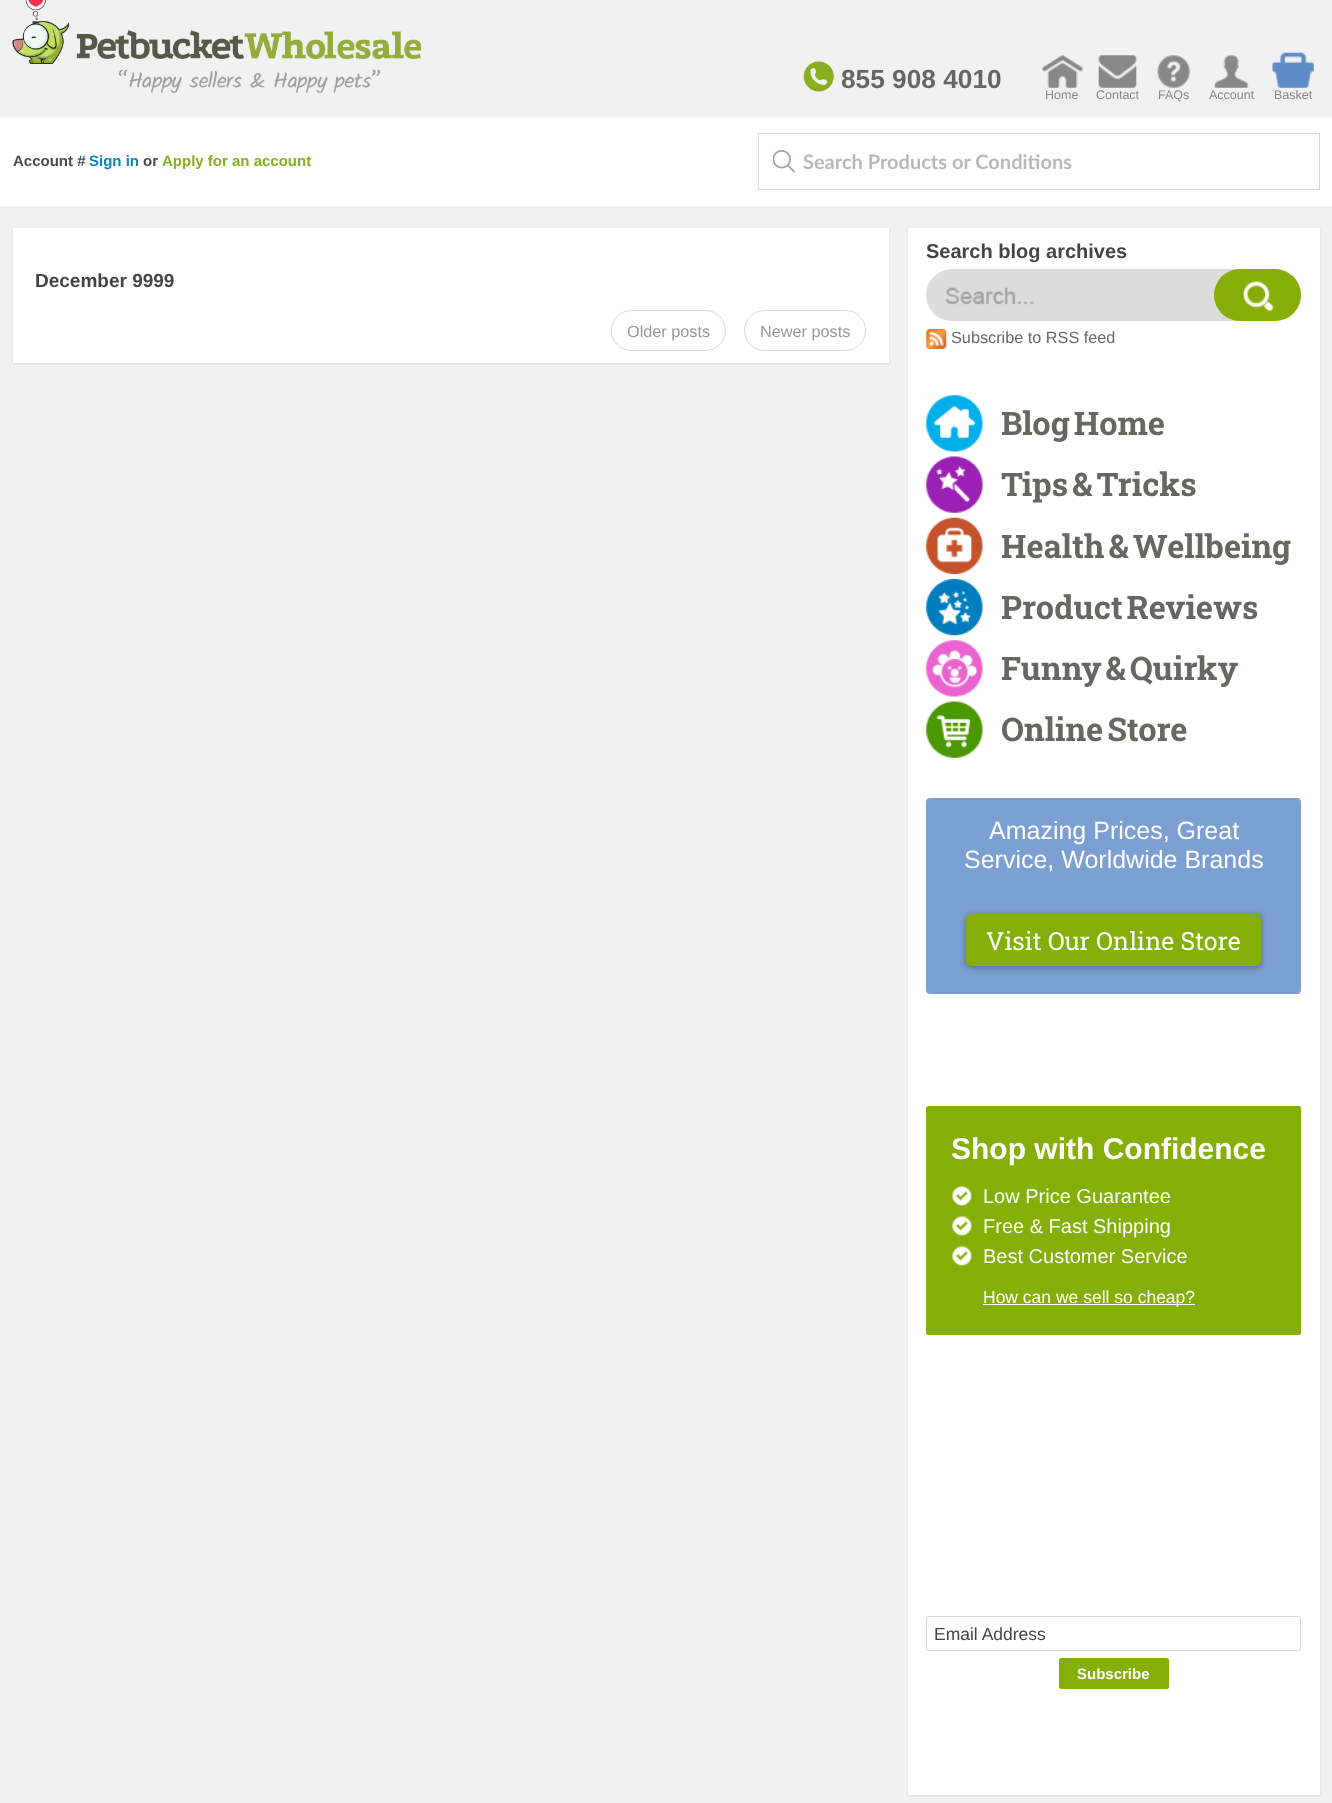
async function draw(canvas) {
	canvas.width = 1332;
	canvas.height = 1803;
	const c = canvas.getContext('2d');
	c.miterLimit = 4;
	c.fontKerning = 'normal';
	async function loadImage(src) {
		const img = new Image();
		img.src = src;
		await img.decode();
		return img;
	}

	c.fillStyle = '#f1f1f1';
	c.fillRect(0, 0, 1332, 1803);
	c.drawImage(await loadImage('img1.png'), 0, 117, 1332, 91);
	c.drawImage(await loadImage('img2.png'), 12, 0, 410, 93);
	c.drawImage(await loadImage('img3.png'), 803, 61, 31, 31);
	c.font = 'bold 26.25px Liberation Sans';
	c.fillStyle = '#666761';
	c.fillText('855 908 4010', 841, 88);
	c.drawImage(await loadImage('img4.png'), 1042, 55, 41, 33);
	c.font = '12.5px Liberation Sans';
	c.fillStyle = '#888';
	c.fillText('Home', 1045, 99);
	c.drawImage(await loadImage('img5.png'), 1098, 55, 39, 33);
	c.fillText('Contact', 1096, 99);
	c.drawImage(await loadImage('img6.png'), 1157, 55, 34, 33);
	c.fillText('FAQs', 1158, 99);
	c.drawImage(await loadImage('img7.png'), 1214, 55, 35, 33);
	c.fillText('Account', 1209, 99);
	c.drawImage(await loadImage('img8.png'), 1272, 52, 42, 36);
	c.fillText('Basket', 1274, 99);
	c.font = 'bold 15px Liberation Sans';
	c.fillStyle = '#4b4b4b';
	c.fillText('Account #', 13, 166);
	c.fillStyle = '#0c82b7';
	c.fillText('Sign in', 89, 166);
	c.fillStyle = '#4b4b4b';
	c.fillText('or', 143, 166);
	c.fillStyle = '#88af20';
	c.fillText('Apply for an account', 162, 166);
	c.strokeStyle = '#d4d8e3';
	c.strokeRect(758.5, 133.5, 561, 56);
	c.drawImage(await loadImage('img9.png'), 773, 150, 22, 23);
	c.font = 'bold 20px Lato';
	c.fillStyle = '#b5b8bc';
	c.fillText('Search Products or Conditions', 803, 169);
	c.fillStyle = '#0000001a';
	c.filter = 'blur(1px)';
	c.beginPath();
	c.rect(13, 229, 876, 135);
	c.fill();
	c.filter = 'none';
	c.fillStyle = '#fff';
	c.fillRect(13, 228, 876, 135);
	c.font = 'bold 19px Liberation Sans';
	c.fillStyle = '#444';
	c.fillText('December 9999', 35, 287);
	c.beginPath();
	c.roundRect(611.5, 310.5, 114, 40, 20);
	c.strokeStyle = '#d9d9d9';
	c.stroke();
	c.font = '16.25px Liberation Sans';
	c.fillStyle = '#999';
	c.fillText('Older posts', 627, 337);
	c.beginPath();
	c.roundRect(744.5, 310.5, 121, 40, 20);
	c.stroke();
	c.fillText('Newer posts', 760, 337);
	c.fillStyle = '#0000001a';
	c.filter = 'blur(1px)';
	c.beginPath();
	c.rect(908, 229, 412, 1567);
	c.fill();
	c.filter = 'none';
	c.fillStyle = '#fff';
	c.fillRect(908, 228, 412, 1567);
	c.font = 'bold 20px Liberation Sans';
	c.fillStyle = '#444';
	c.fillText('Search blog archives', 926, 258);
	c.fillStyle = '#ddd';
	c.beginPath();
	c.roundRect(926, 269, 370, 52, 26);
	c.fill();
	c.drawImage(await loadImage('img10.png'), 945, 287, 89, 18);
	c.fillStyle = '#85ae08';
	c.beginPath();
	c.roundRect(1214, 269, 87, 52, 26);
	c.fill();
	c.drawImage(await loadImage('img11.png'), 1242, 281, 32, 31);
	c.drawImage(await loadImage('img12.png'), 926, 329, 21, 20);
	c.font = '16.25px Liberation Sans';
	c.fillStyle = '#666761';
	c.fillText('Subscribe to RSS feed', 951, 343);
	c.drawImage(await loadImage('img13.png'), 926, 395, 57, 57);
	c.wordSpacing = '-4px';
	c.font = 'bold 32.5px Roboto Slab';
	c.fillText('Blog Home', 1001, 435);
	c.drawImage(await loadImage('img14.png'), 926, 456, 57, 57);
	c.fillText('Tips & Tricks', 1001, 496);
	c.drawImage(await loadImage('img15.png'), 926, 517, 57, 57);
	c.fillText('Health & Wellbeing', 1001, 558);
	c.drawImage(await loadImage('img16.png'), 926, 579, 57, 57);
	c.fillText('Product Reviews', 1001, 619);
	c.drawImage(await loadImage('img17.png'), 926, 640, 57, 57);
	c.fillText('Funny & Quirky', 1001, 680);
	c.drawImage(await loadImage('img18.png'), 926, 701, 57, 57);
	c.fillText('Online Store', 1001, 741);
	c.fillStyle = '#7b9fd1';
	c.beginPath();
	c.roundRect(926, 798, 375, 196, 4);
	c.fill();
	c.wordSpacing = '0px';
	c.font = '25px Liberation Sans';
	c.fillStyle = '#fff';
	c.fillText('Amazing Prices, Great', 989, 839);
	c.fillText('Service, Worldwide Brands', 964, 868);
	c.fillStyle = '#0000004d';
	c.filter = 'blur(3px)';
	c.beginPath();
	c.roundRect(966, 915, 295, 53, 5);
	c.fill();
	c.filter = 'none';
	c.fillStyle = '#85ae08';
	c.beginPath();
	c.roundRect(966, 914, 295, 52, 5);
	c.fill();
	c.font = '25px Roboto Slab';
	c.fillStyle = '#fff';
	c.fillText('Visit Our Online Store', 986, 950);
	c.fillStyle = '#85ae07';
	c.beginPath();
	c.roundRect(926, 1106, 375, 229, 2.5);
	c.fill();
	c.font = 'bold 30px Liberation Sans';
	c.fillStyle = '#fff';
	c.fillText('Shop with Confidence', 951, 1159);
	c.drawImage(await loadImage('img19.png'), 952, 1186, 20, 20);
	c.font = '20px Liberation Sans';
	c.fillText('Low Price Guarantee', 983, 1203);
	c.drawImage(await loadImage('img19.png'), 952, 1216, 20, 20);
	c.fillText('Free & Fast Shipping', 983, 1233);
	c.drawImage(await loadImage('img19.png'), 952, 1246, 20, 20);
	c.fillText('Best Customer Service', 983, 1263);
	c.fillRect(983, 1304, 212, 1);
	c.font = '17.5px Liberation Sans';
	c.fillText('How can we sell so cheap?', 983, 1303);
	c.beginPath();
	c.roundRect(926.5, 1616.5, 374, 34, 2);
	c.strokeStyle = '#d3d3d3';
	c.stroke();
	c.fillStyle = '#444';
	c.fillText('Email Address', 934, 1640);
	c.fillStyle = '#85ae08';
	c.beginPath();
	c.roundRect(1059, 1658, 110, 31, 2.5);
	c.fill();
	c.font = 'bold 15px Liberation Sans';
	c.fillStyle = '#fff';
	c.fillText('Subscribe', 1077, 1679);
}

draw(document.querySelector('canvas'));
